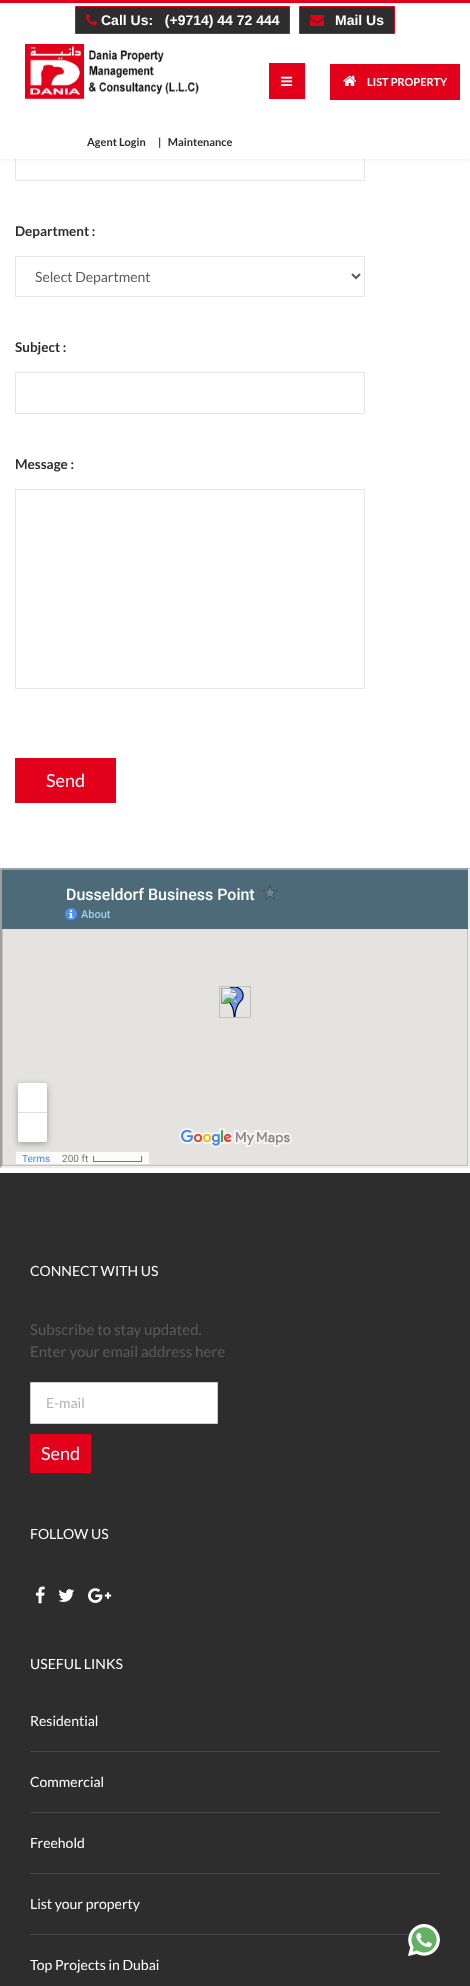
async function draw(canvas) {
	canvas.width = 470;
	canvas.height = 1986;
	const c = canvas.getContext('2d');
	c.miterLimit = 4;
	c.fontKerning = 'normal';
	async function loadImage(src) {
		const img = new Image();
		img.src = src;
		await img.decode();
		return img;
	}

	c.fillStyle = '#fff';
	c.fillRect(0, 0, 470, 1986);
	c.strokeStyle = '#e6e6e6';
	c.strokeRect(15.5, 139.5, 349, 41);
	c.fillStyle = '#0000001a';
	c.filter = 'blur(2.5px)';
	c.beginPath();
	c.rect(0, 0, 470, 159);
	c.fill();
	c.filter = 'none';
	c.fillStyle = '#fff';
	c.fillRect(0, 3, 470, 156);
	c.fillStyle = '#e2001a';
	c.fillRect(0, 0, 470, 3);
	c.fillStyle = '#2d2d2d';
	c.beginPath();
	c.rect(75.5, 6.5, 214, 27);
	c.fill();
	c.strokeStyle = '#e2001a';
	c.stroke();
	c.drawImage(await loadImage('img1.png'), 86, 14, 11, 11);
	c.font = 'bold 14px Liberation Sans';
	c.fillStyle = '#fff';
	c.fillText('Call Us:   (+9714) 44 72 444', 101, 25);
	c.fillStyle = '#2d2d2d';
	c.beginPath();
	c.rect(299.5, 6.5, 95, 27);
	c.fill();
	c.stroke();
	c.drawImage(await loadImage('img2.png'), 310, 15, 14, 11);
	c.fillStyle = '#fff';
	c.fillText('Mail Us', 335, 25);
	c.drawImage(await loadImage('img3.png'), 25, 44, 174, 55);
	c.fillStyle = '#e2001a';
	c.fillRect(269, 63, 36, 36);
	c.drawImage(await loadImage('img4.png'), 281, 76, 12, 10);
	c.fillRect(330, 64, 130, 36);
	c.drawImage(await loadImage('img5.png'), 343, 75, 14, 11);
	c.font = 'bold 11px Lato';
	c.fillStyle = '#fff';
	c.fillText('LIST PROPERTY', 367, 86);
	c.fillStyle = '#2d2d2d';
	c.fillText('Agent Login', 87, 146);
	c.fillText('|   Maintenance', 158, 146);
	c.font = 'bold 13.5px Lato';
	c.fillText('Department :', 15, 236);
	c.strokeStyle = '#e6e6e6';
	c.strokeRect(15.5, 256.5, 349, 40);
	c.beginPath();
	c.moveTo(352, 274);
	c.lineTo(356, 278);
	c.lineTo(360, 274);
	c.strokeStyle = '#5c5c5c';
	c.lineWidth = 2;
	c.stroke();
	c.font = '14px Lato';
	c.fillStyle = '#5c5c5c';
	c.fillText('Select Department', 35, 282);
	c.font = 'bold 13.5px Lato';
	c.fillStyle = '#2d2d2d';
	c.fillText('Subject :', 15, 352);
	c.strokeStyle = '#e6e6e6';
	c.lineWidth = 1;
	c.strokeRect(15.5, 372.5, 349, 41);
	c.fillText('Message :', 15, 469);
	c.strokeRect(15.5, 489.5, 349, 199);
	c.fillStyle = '#e2001a';
	c.fillRect(15, 758, 101, 45);
	c.font = '18px Lato';
	c.fillStyle = '#fff';
	c.fillText('Send', 46, 787);
	c.fillStyle = '#9f9f9f';
	c.beginPath();
	c.moveTo(0, 868);
	c.lineTo(470, 868);
	c.lineTo(468, 870);
	c.lineTo(2, 870);
	c.closePath();
	c.fill();
	c.fillStyle = '#eee';
	c.beginPath();
	c.moveTo(470, 868);
	c.lineTo(470, 1168);
	c.lineTo(468, 1166);
	c.lineTo(468, 870);
	c.closePath();
	c.fill();
	c.beginPath();
	c.moveTo(470, 1168);
	c.lineTo(0, 1168);
	c.lineTo(2, 1166);
	c.lineTo(468, 1166);
	c.closePath();
	c.fill();
	c.fillStyle = '#9f9f9f';
	c.beginPath();
	c.moveTo(0, 1168);
	c.lineTo(0, 868);
	c.lineTo(2, 870);
	c.lineTo(2, 1166);
	c.closePath();
	c.fill();
	c.drawImage(await loadImage('img6.png'), 2, 870, 466, 296);
	c.fillStyle = '#2d2d2d';
	c.fillRect(0, 1173, 470, 813);
	c.font = '14px Lato';
	c.fillStyle = '#fff';
	c.fillText('CONNECT WITH US', 30, 1276);
	c.font = '15px Lato';
	c.fillStyle = '#5c5c5c';
	c.fillText('Subscribe to stay updated.', 30, 1335);
	c.fillText('Enter your email address here', 30, 1357);
	c.fillStyle = '#fff';
	c.beginPath();
	c.rect(30.5, 1382.5, 187, 41);
	c.fill();
	c.strokeStyle = '#ccc';
	c.stroke();
	c.font = '14px Lato';
	c.fillStyle = '#b3b3b3';
	c.fillText('E-mail', 46, 1408);
	c.fillStyle = '#e2001a';
	c.fillRect(30, 1434, 61, 39);
	c.font = '18px Lato';
	c.fillStyle = '#fff';
	c.fillText('Send', 41, 1460);
	c.font = '14px Lato';
	c.fillText('FOLLOW US', 30, 1539);
	c.drawImage(await loadImage('img7.png'), 35, 1586, 10, 18);
	c.drawImage(await loadImage('img8.png'), 58, 1589, 17, 13);
	c.drawImage(await loadImage('img9.png'), 88, 1588, 24, 15);
	c.fillText('USEFUL LINKS', 30, 1669);
	c.fillStyle = '#474747';
	c.fillRect(30, 1751, 410, 1);
	c.fillStyle = '#fff';
	c.fillText('Residential', 30, 1726);
	c.fillStyle = '#474747';
	c.fillRect(30, 1812, 410, 1);
	c.fillStyle = '#fff';
	c.fillText('Commercial', 30, 1787);
	c.fillStyle = '#474747';
	c.fillRect(30, 1873, 410, 1);
	c.fillStyle = '#fff';
	c.fillText('Freehold', 30, 1848);
	c.fillStyle = '#474747';
	c.fillRect(30, 1934, 410, 1);
	c.fillStyle = '#fff';
	c.fillText('List your property', 30, 1909);
	c.fillText('Top Projects in Dubai', 30, 1970);
	c.drawImage(await loadImage('img10.png'), 408, 1924, 32, 32);
}

draw(document.querySelector('canvas'));
